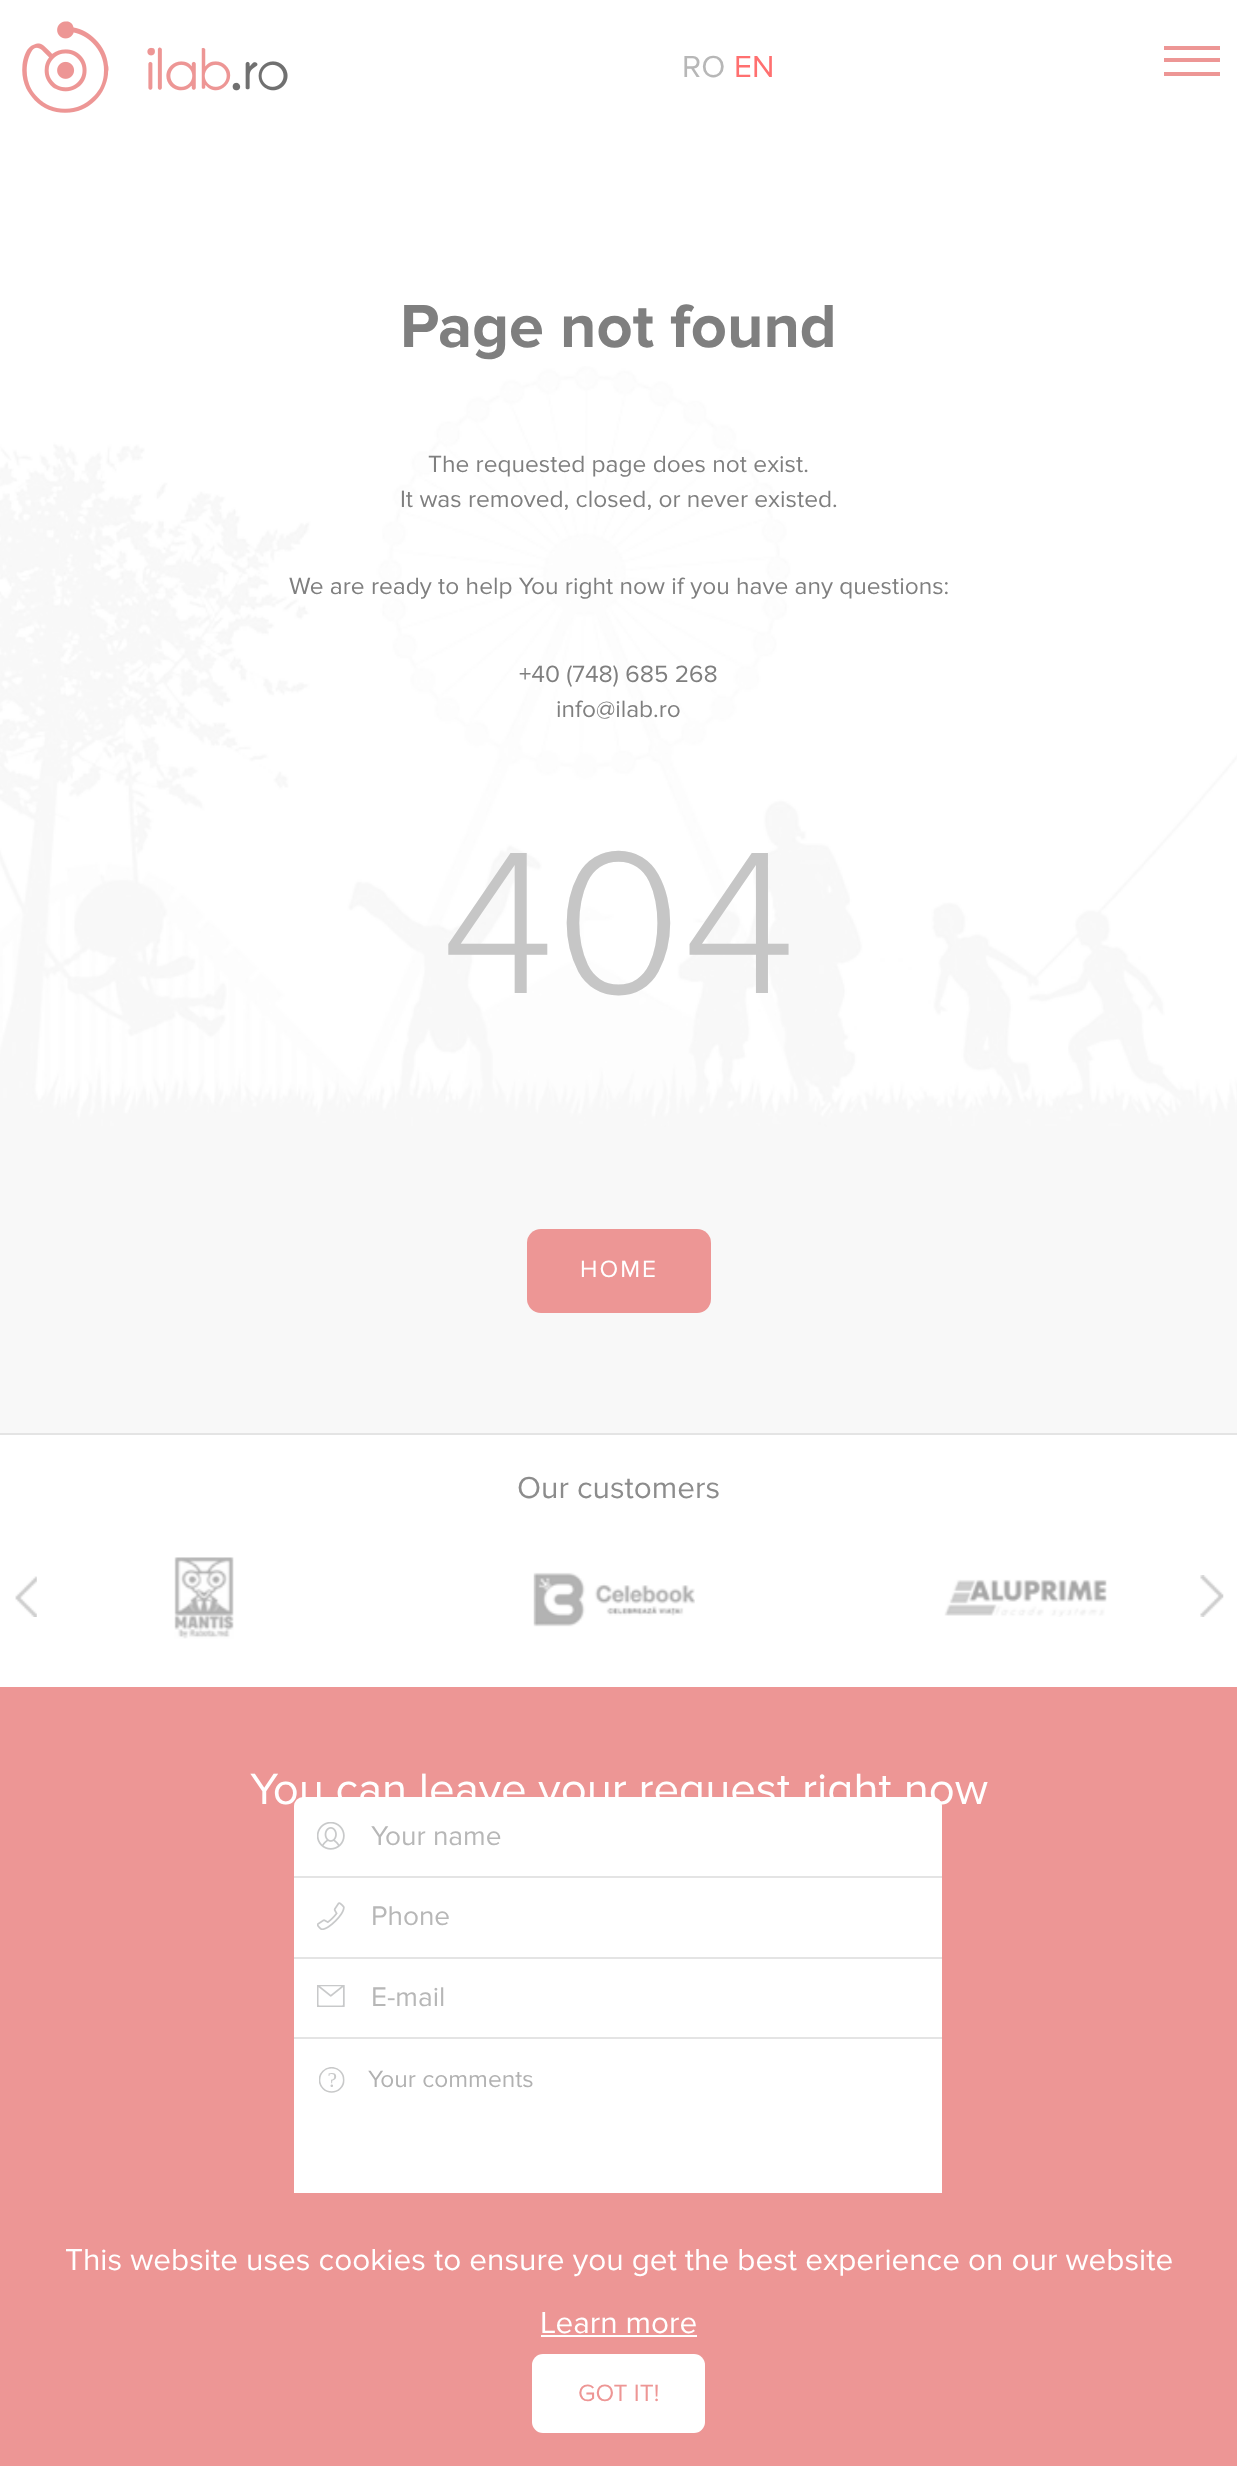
async function draw(canvas) {
	canvas.width = 1237;
	canvas.height = 2466;
	const c = canvas.getContext('2d');
	c.miterLimit = 4;
	c.fontKerning = 'normal';
	async function loadImage(src) {
		const img = new Image();
		img.src = src;
		await img.decode();
		return img;
	}

	c.fillStyle = '#fff';
	c.fillRect(0, 0, 1237, 2466);
	c.drawImage(await loadImage('img1.png'), 22, 21, 266, 92);
	c.font = '31.5px Proxima Nova';
	c.fillStyle = '#b7b7b7';
	c.fillText('RO', 682, 77);
	c.fillStyle = '#ff7070';
	c.fillText('EN', 734, 77);
	for (const [x, y, w, h, color] of [
		[1164, 58, 56, 4, '#ed9695'],
		[1164, 46, 56, 4, '#ed9695'],
		[1164, 72, 56, 4, '#ed9695'],
	]) {
		c.fillStyle = color;
		c.fillRect(x, y, w, h);
	}
	c.drawImage(await loadImage('img2.png'), 0, 366, 1237, 1067);
	c.font = 'bold 63px Proxima Nova';
	c.fillStyle = '#7f7f7f';
	c.fillText('Page not found', 400, 347);
	c.font = '24.5px Proxima Nova';
	for (const [text, x, y] of [
		['The requested page does not exist.', 428, 472],
		['It was removed, closed, or never existed.', 400, 507],
		['We are ready to help You right now if you have any questions:', 289, 594],
		['+40 (748) 685 268', 519, 682],
		['info@ilab.ro', 556, 717],
	]) {
		c.fillText(text, x, y);
	}
	c.font = '300 210px Proxima Nova';
	c.fillStyle = '#c6c6c6';
	c.fillText('404', 441, 993);
	c.fillStyle = '#ed9695';
	c.beginPath();
	c.roundRect(527, 1229, 184, 84, 14);
	c.fill();
	c.letterSpacing = '2px';
	c.font = '24.5px Proxima Nova';
	c.fillStyle = '#fff';
	c.fillText('HOME', 580, 1277);
	c.fillStyle = '#e4e4e4';
	c.fillRect(0, 1433, 1237, 2);
	c.letterSpacing = '0px';
	c.font = '31.5px Proxima Nova';
	c.fillStyle = '#8c8c8c';
	c.fillText('Our customers', 517, 1498);
	c.drawImage(await loadImage('img3.png'), 15, 1576, 22, 41);
	c.drawImage(await loadImage('img4.png'), 174, 1557, 60, 82);
	c.drawImage(await loadImage('img5.png'), 533, 1572, 162, 55);
	c.drawImage(await loadImage('img6.png'), 944, 1579, 163, 38);
	c.drawImage(await loadImage('img7.png'), 1200, 1575, 24, 42);
	c.fillStyle = '#ed9695';
	c.fillRect(0, 1687, 1237, 779);
	c.font = '45.5px Proxima Nova';
	c.fillStyle = '#fff';
	c.fillText('You can leave your request right now', 250, 1804);
	c.beginPath();
	c.roundRect(294, 1797, 648, 81, [9, 9, 0, 0]);
	c.fill();
	c.fillStyle = '#e4e4e4';
	c.fillRect(294, 1876, 648, 2);
	c.drawImage(await loadImage('img8.png'), 317, 1822, 28, 28);
	c.font = '28px Proxima Nova';
	c.fillStyle = '#b7b7b7';
	c.fillText('Your name', 371, 1845);
	c.fillStyle = '#fff';
	c.fillRect(294, 1878, 648, 79);
	c.drawImage(await loadImage('img9.png'), 317, 1902, 28, 28);
	c.fillStyle = '#b7b7b7';
	c.fillText('Phone', 371, 1925);
	for (const [x, y, w, h, color] of [
		[294, 1959, 648, 78, '#fff'],
		[294, 1957, 648, 2, '#e4e4e4'],
		[294, 2037, 648, 2, '#e4e4e4'],
	]) {
		c.fillStyle = color;
		c.fillRect(x, y, w, h);
	}
	c.drawImage(await loadImage('img10.png'), 317, 1985, 28, 22);
	c.fillStyle = '#b7b7b7';
	c.fillText('E-mail', 371, 2006);
	c.fillStyle = '#fff';
	c.fillRect(294, 2039, 648, 154);
	c.drawImage(await loadImage('img11.png'), 319, 2067, 26, 26);
	c.font = '24.5px Proxima Nova';
	c.fillStyle = '#b1b1b1';
	c.fillText('Your comments', 368, 2087);
	c.font = '31.5px Proxima Nova';
	c.fillStyle = '#fff';
	c.fillText('This website uses cookies to ensure you get the best experience on our website', 65, 2270);
	c.fillText('Learn more', 540, 2333);
	c.fillRect(541, 2335, 156, 2);
	c.beginPath();
	c.roundRect(532, 2354, 173, 79, 11);
	c.fill();
	c.font = '24.5px Proxima Nova';
	c.fillStyle = '#ed9695';
	c.fillText('GOT IT!', 578, 2401);
}

draw(document.querySelector('canvas'));
